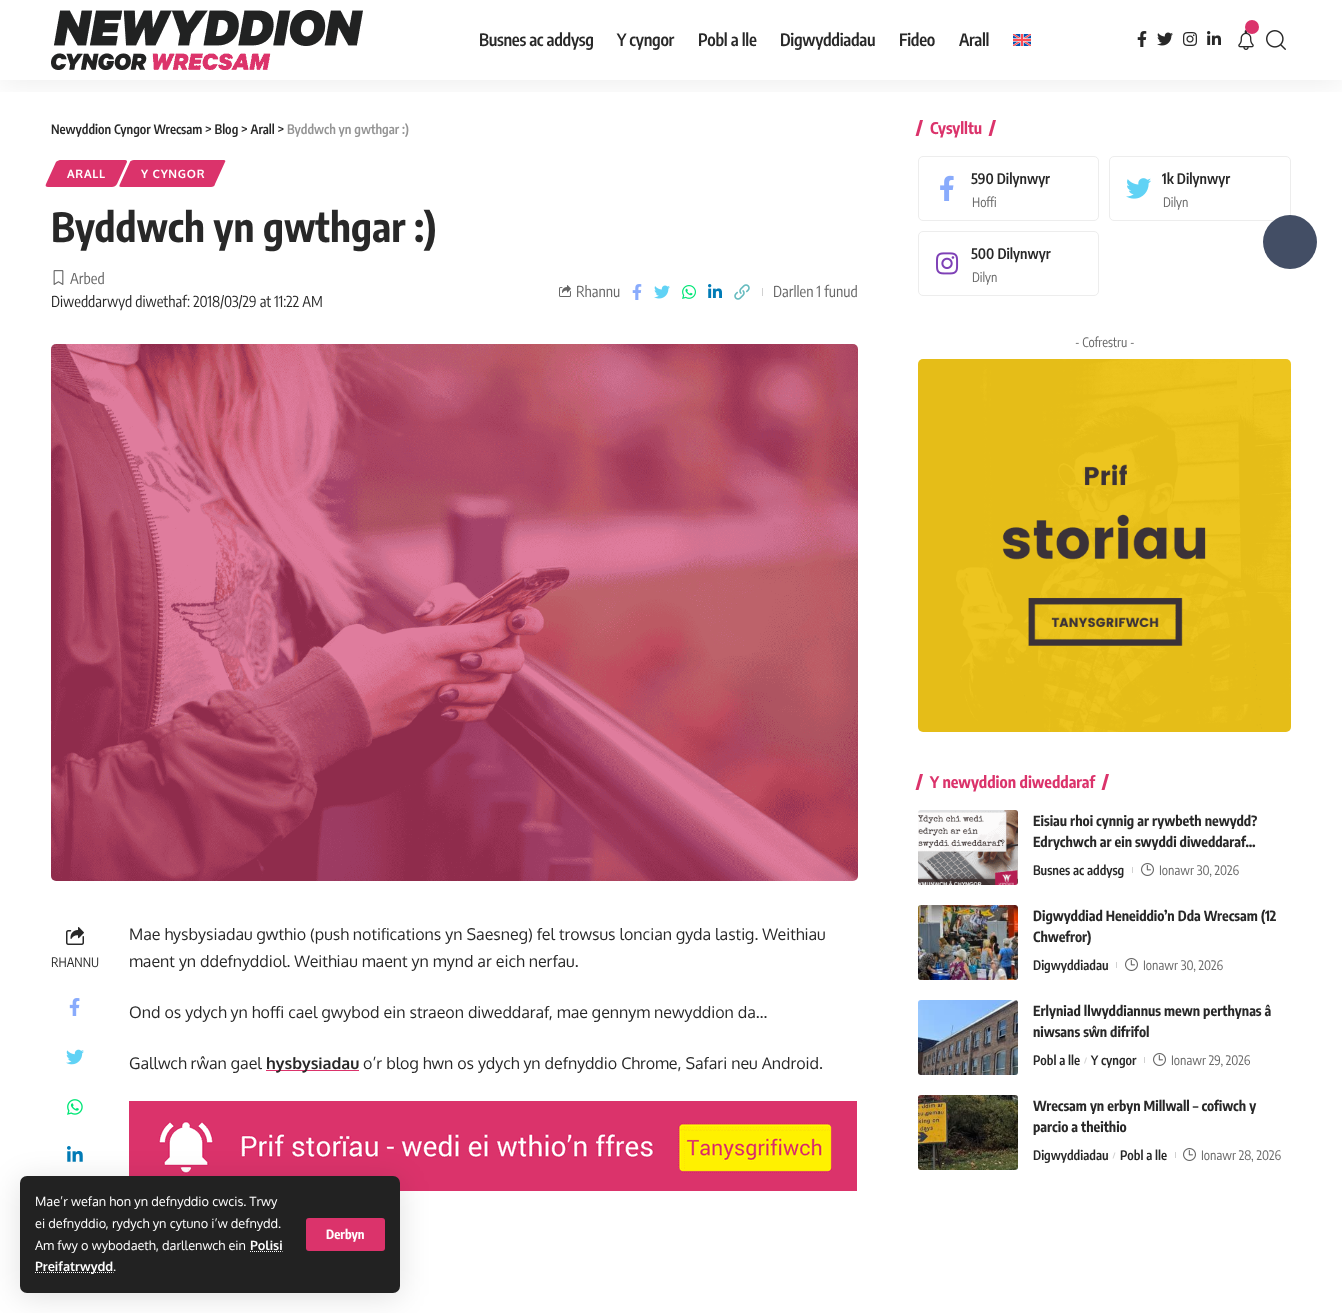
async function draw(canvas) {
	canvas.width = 1342;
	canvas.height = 1313;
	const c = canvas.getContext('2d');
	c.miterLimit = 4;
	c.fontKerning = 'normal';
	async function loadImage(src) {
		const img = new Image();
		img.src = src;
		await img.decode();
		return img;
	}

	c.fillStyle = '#fff';
	c.fillRect(0, 0, 1342, 1313);
	c.fillStyle = '#db336b';
	c.beginPath();
	c.moveTo(993, 120);
	c.lineTo(996, 120);
	c.lineTo(991.5, 136);
	c.lineTo(988.5, 136);
	c.closePath();
	c.fill();
	c.beginPath();
	c.moveTo(920, 120);
	c.lineTo(923, 120);
	c.lineTo(918.5, 136);
	c.lineTo(915.5, 136);
	c.closePath();
	c.fill();
	c.save();
	c.beginPath();
	c.rect(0, 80, 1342, 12);
	c.clip();
	c.fillStyle = '#00000012';
	c.filter = 'blur(15px)';
	c.beginPath();
	c.rect(0, 4, 1342, 80);
	c.fill();
	c.filter = 'none';
	c.restore();
	c.drawImage(await loadImage('img1.png'), 51, 10, 312, 60);
	c.letterSpacing = '-0.3px';
	c.font = '600 17px Encode Sans Condensed';
	c.fillStyle = '#282828';
	for (const [text, x, y] of [
		['Busnes ac addysg', 479, 46],
		['Y cyngor', 617, 46],
		['Pobl a lle', 698, 46],
		['Digwyddiadau', 780, 46],
		['Fideo', 899, 46],
		['Arall', 959, 46],
	]) {
		c.fillText(text, x, y);
	}
	c.drawImage(await loadImage('img2.png'), 1013, 34, 18, 12);
	c.drawImage(await loadImage('img3.png'), 1137, 31, 10, 16);
	c.drawImage(await loadImage('img4.png'), 1157, 32, 16, 14);
	c.drawImage(await loadImage('img5.png'), 1183, 32, 14, 14);
	c.drawImage(await loadImage('img6.png'), 1207, 31, 14, 14);
	c.drawImage(await loadImage('img7.png'), 1238, 30, 16, 20);
	c.fillStyle = '#db336b';
	c.beginPath();
	c.arc(1252, 27, 7, 0, 2 * Math.PI);
	c.fill();
	c.drawImage(await loadImage('img8.png'), 1266, 30, 20, 20);
	c.drawImage(await loadImage('img21.png'), 67, 1146, 16, 16);
	c.drawImage(await loadImage('img22.png'), 129, 1101, 728, 90);
	c.fillStyle = '#0000001f';
	c.filter = 'blur(15px)';
	c.beginPath();
	c.roundRect(20, 1180, 380, 117, 7);
	c.fill();
	c.filter = 'none';
	c.fillStyle = '#222';
	c.beginPath();
	c.roundRect(20, 1176, 380, 117, 7);
	c.fill();
	c.letterSpacing = '0px';
	c.font = '12.75px Oxygen';
	c.fillStyle = '#fff';
	for (const [text, x, y] of [
		['Mae’r wefan hon yn defnyddio cwcis. Trwy', 35, 1206],
		['ei defnyddio, rydych yn cytuno i’w defnydd.', 35, 1228],
		['Am fwy o wybodaeth, darllenwch ein', 35, 1250],
	]) {
		c.fillText(text, x, y);
	}
	c.font = 'bold 12.75px Oxygen';
	c.fillText('Polisi', 250, 1250);
	c.beginPath();
	c.moveTo(250, 1251.5);
	c.lineTo(282.5, 1251.5);
	c.strokeStyle = '#fff';
	c.setLineDash([1, 1]);
	c.stroke();
	c.beginPath();
	c.moveTo(35, 1272.5);
	c.lineTo(113.5, 1272.5);
	c.stroke();
	c.fillText('Preifatrwydd', 35, 1271);
	c.font = '12.75px Oxygen';
	c.fillText('.', 113, 1271);
	c.fillStyle = '#db336b';
	c.beginPath();
	c.roundRect(306, 1218, 79, 33, 3);
	c.fill();
	c.font = 'bold 12.75px Encode Sans Condensed';
	c.fillStyle = '#fff';
	c.fillText('Derbyn', 326, 1239);
	c.font = '600 13px Encode Sans Condensed';
	c.fillStyle = '#282828';
	c.fillText('Newyddion Cyngor Wrecsam > Blog > Arall >', 51, 134);
	c.fillStyle = '#949494';
	c.fillText('Byddwch yn gwthgar :)', 287, 134);
	c.fillStyle = '#db336b';
	c.beginPath();
	c.moveTo(60, 160);
	c.lineTo(125, 160);
	c.bezierCurveTo(127, 160, 127, 161, 127, 162);
	c.lineTo(117, 184);
	c.bezierCurveTo(116, 186, 114, 187, 112, 187);
	c.lineTo(48, 187);
	c.bezierCurveTo(46, 187, 45, 186, 46, 184);
	c.lineTo(56, 162);
	c.bezierCurveTo(57, 161, 59, 160, 60, 160);
	c.closePath();
	c.fill();
	c.letterSpacing = '0.75px';
	c.font = 'bold 11.5px Oxygen';
	c.fillStyle = '#fff';
	c.fillText('ARALL', 67, 178);
	c.fillStyle = '#db336b';
	c.beginPath();
	c.moveTo(134, 160);
	c.lineTo(224, 160);
	c.bezierCurveTo(225, 160, 226, 161, 225, 162);
	c.lineTo(215, 184);
	c.bezierCurveTo(215, 186, 213, 187, 211, 187);
	c.lineTo(121, 187);
	c.bezierCurveTo(119, 187, 119, 186, 120, 184);
	c.lineTo(130, 162);
	c.bezierCurveTo(130, 161, 132, 160, 134, 160);
	c.closePath();
	c.fill();
	c.fillStyle = '#fff';
	c.fillText('Y CYNGOR', 141, 178);
	c.letterSpacing = '0px';
	c.font = 'bold 40px Encode Sans Condensed';
	c.fillStyle = '#282828';
	c.fillText('Byddwch yn gwthgar :)', 51, 242);
	c.drawImage(await loadImage('img9.png'), 53, 270, 11, 15);
	c.font = '15px Encode Sans Condensed';
	c.fillStyle = '#666';
	c.fillText('Arbed', 70, 284);
	c.fillStyle = '#282828';
	c.fillText('Diweddarwyd diwethaf: 2018/03/29 at 11:22 AM', 51, 307);
	c.drawImage(await loadImage('img10.png'), 559, 285, 12, 12);
	c.fillStyle = '#666';
	c.fillText('Rhannu', 576, 297);
	c.drawImage(await loadImage('img11.png'), 632, 284, 10, 16);
	c.drawImage(await loadImage('img12.png'), 654, 285, 16, 14);
	c.drawImage(await loadImage('img13.png'), 682, 285, 14, 14);
	c.drawImage(await loadImage('img14.png'), 708, 284, 14, 14);
	c.drawImage(await loadImage('img15.png'), 734, 284, 16, 16);
	c.fillStyle = '#d1d1d1';
	c.fillRect(762, 288, 1, 8);
	c.fillStyle = '#666';
	c.fillText('Darllen 1 funud', 773, 297);
	c.drawImage(await loadImage('img16.png'), 51, 344, 807, 537);
	c.drawImage(await loadImage('img17.png'), 66, 927, 18, 18);
	c.font = '13px Encode Sans Condensed';
	c.fillStyle = '#282828';
	c.fillText('RHANNU', 51, 967);
	c.drawImage(await loadImage('img18.png'), 69, 998, 11, 18);
	c.drawImage(await loadImage('img19.png'), 66, 1049, 18, 16);
	c.drawImage(await loadImage('img20.png'), 67, 1099, 16, 16);
	c.font = '16px Oxygen';
	for (const [text, x, y] of [
		['Mae hysbysiadau gwthio (push notifications yn Saesneg) fel trowsus loncian gyda lastig. Weithiau', 129, 940],
		['maent yn ddefnyddiol. Weithiau maent yn mynd ar eich nerfau.', 129, 967],
		['Ond os ydych yn hoffi cael gwybod ein straeon diweddaraf, mae gennym newyddion da…', 129, 1018],
		['Gallwch rŵan gael', 129, 1069],
	]) {
		c.fillText(text, x, y);
	}
	c.fillStyle = '#db336b';
	c.fillRect(266, 1070, 93, 1);
	c.font = 'bold 16px Oxygen';
	c.fillStyle = '#282828';
	c.fillText('hysbysiadau', 266, 1069);
	c.font = '16px Oxygen';
	c.fillText('o’r blog hwn os ydych yn defnyddio Chrome, Safari neu Android.', 363, 1069);
	c.font = 'bold 16px Encode Sans Condensed';
	c.fillStyle = '#db336b';
	c.fillText('Cysylltu', 930, 134);
	c.beginPath();
	c.roundRect(918.5, 156.5, 180, 64, 4.5);
	c.strokeStyle = '#ededed';
	c.setLineDash([]);
	c.stroke();
	c.drawImage(await loadImage('img23.png'), 940, 175, 14, 26);
	c.font = '600 14.5px Encode Sans Condensed';
	c.fillStyle = '#282828';
	c.fillText('590 Dilynwyr', 971, 184);
	c.font = '13px Encode Sans Condensed';
	c.fillStyle = '#666';
	c.fillText('Hoffi', 972, 207);
	c.beginPath();
	c.roundRect(1109.5, 156.5, 181, 64, 4.5);
	c.stroke();
	c.drawImage(await loadImage('img24.png'), 1126, 178, 25, 21);
	c.font = '600 14.5px Encode Sans Condensed';
	c.fillStyle = '#282828';
	c.fillText('1k Dilynwyr', 1162, 184);
	c.font = '13px Encode Sans Condensed';
	c.fillStyle = '#666';
	c.fillText('Dilyn', 1163, 207);
	c.beginPath();
	c.roundRect(918.5, 231.5, 180, 64, 4.5);
	c.stroke();
	c.drawImage(await loadImage('img25.png'), 936, 252, 23, 23);
	c.font = '600 14.5px Encode Sans Condensed';
	c.fillStyle = '#282828';
	c.fillText('500 Dilynwyr', 971, 259);
	c.font = '13px Encode Sans Condensed';
	c.fillStyle = '#666';
	c.fillText('Dilyn', 972, 282);
	c.fillText('- Cofrestru -', 1075, 347);
	c.drawImage(await loadImage('img26.png'), 918, 359, 373, 373);
	c.fillStyle = '#db336b';
	c.beginPath();
	c.moveTo(1106, 774);
	c.lineTo(1109, 774);
	c.lineTo(1104.5, 790);
	c.lineTo(1101.5, 790);
	c.closePath();
	c.fill();
	c.beginPath();
	c.moveTo(920, 774);
	c.lineTo(923, 774);
	c.lineTo(918.5, 790);
	c.lineTo(915.5, 790);
	c.closePath();
	c.fill();
	c.font = 'bold 16px Encode Sans Condensed';
	c.fillText('Y newyddion diweddaraf', 930, 788);
	c.drawImage(await loadImage('img27.png'), 918, 810, 100, 75);
	c.font = 'bold 14px Encode Sans Condensed';
	c.fillStyle = '#282828';
	c.fillText('Eisiau rhoi cynnig ar rywbeth newydd?', 1033, 826);
	c.fillText('Edrychwch ar ein swyddi diweddaraf…', 1033, 847);
	c.font = '600 13px Encode Sans Condensed';
	c.fillText('Busnes ac addysg', 1033, 875);
	c.fillStyle = '#d1d1d1';
	c.fillRect(1132, 867, 1, 6);
	c.drawImage(await loadImage('img28.png'), 1141, 863, 13, 13);
	c.font = '13px Encode Sans Condensed';
	c.fillStyle = '#666';
	c.fillText('Ionawr 30, 2026', 1159, 875);
	c.drawImage(await loadImage('img29.png'), 918, 905, 100, 75);
	c.font = 'bold 14px Encode Sans Condensed';
	c.fillStyle = '#282828';
	c.fillText('Digwyddiad Heneiddio’n Dda Wrecsam (12', 1033, 921);
	c.fillText('Chwefror)', 1033, 942);
	c.font = '600 13px Encode Sans Condensed';
	c.fillText('Digwyddiadau', 1033, 970);
	c.fillStyle = '#d1d1d1';
	c.fillRect(1116, 962, 1, 6);
	c.drawImage(await loadImage('img28.png'), 1125, 958, 13, 13);
	c.font = '13px Encode Sans Condensed';
	c.fillStyle = '#666';
	c.fillText('Ionawr 30, 2026', 1143, 970);
	c.drawImage(await loadImage('img30.png'), 918, 1000, 100, 75);
	c.font = 'bold 14px Encode Sans Condensed';
	c.fillStyle = '#282828';
	c.fillText('Erlyniad llwyddiannus mewn perthynas â', 1033, 1016);
	c.fillText('niwsans sŵn difrifol', 1033, 1037);
	c.font = '600 13px Encode Sans Condensed';
	c.fillText('Pobl a lle', 1033, 1065);
	c.fillStyle = '#d1d1d1';
	c.beginPath();
	c.moveTo(1086, 1057.5);
	c.lineTo(1087, 1057.5);
	c.lineTo(1085, 1063.5);
	c.lineTo(1084, 1063.5);
	c.closePath();
	c.fill();
	c.fillStyle = '#282828';
	c.fillText('Y cyngor', 1091, 1065);
	c.fillStyle = '#d1d1d1';
	c.fillRect(1144, 1057, 1, 6);
	c.drawImage(await loadImage('img28.png'), 1153, 1053, 13, 13);
	c.font = '13px Encode Sans Condensed';
	c.fillStyle = '#666';
	c.fillText('Ionawr 29, 2026', 1171, 1065);
	c.drawImage(await loadImage('img31.png'), 918, 1095, 100, 75);
	c.font = 'bold 14px Encode Sans Condensed';
	c.fillStyle = '#282828';
	c.fillText('Wrecsam yn erbyn Millwall – cofiwch y', 1033, 1111);
	c.fillText('parcio a theithio', 1033, 1132);
	c.font = '600 13px Encode Sans Condensed';
	c.fillText('Digwyddiadau', 1033, 1160);
	c.fillStyle = '#d1d1d1';
	c.beginPath();
	c.moveTo(1114.5, 1152.5);
	c.lineTo(1115.5, 1152.5);
	c.lineTo(1113.5, 1158.5);
	c.lineTo(1112.5, 1158.5);
	c.closePath();
	c.fill();
	c.fillStyle = '#282828';
	c.fillText('Pobl a lle', 1120, 1160);
	c.fillStyle = '#d1d1d1';
	c.fillRect(1175, 1152, 1, 6);
	c.drawImage(await loadImage('img28.png'), 1183, 1148, 13, 13);
	c.font = '13px Encode Sans Condensed';
	c.fillStyle = '#666';
	c.fillText('Ionawr 28, 2026', 1201, 1160);
	c.fillStyle = '#434e65';
	c.beginPath();
	c.arc(1290, 242, 27, 0, 2 * Math.PI);
	c.fill();
}

draw(document.querySelector('canvas'));
